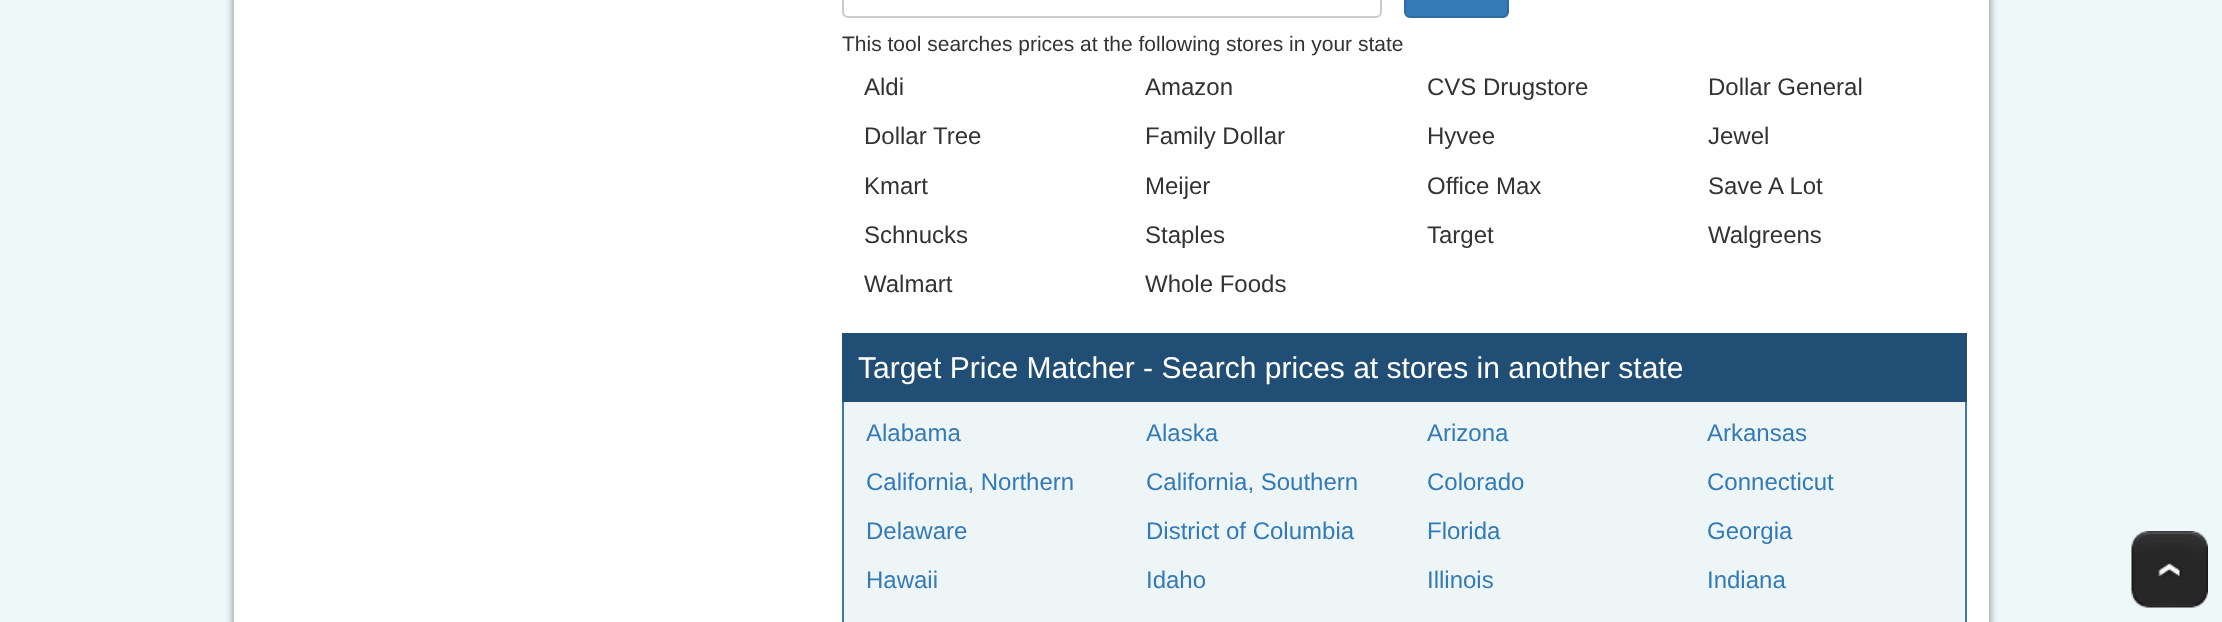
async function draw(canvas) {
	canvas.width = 2222;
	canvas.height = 622;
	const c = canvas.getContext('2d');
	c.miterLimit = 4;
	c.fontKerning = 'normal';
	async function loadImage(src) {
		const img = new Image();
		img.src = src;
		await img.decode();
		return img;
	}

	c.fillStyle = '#eef8f9';
	c.fillRect(0, 0, 2222, 622);
	c.fillStyle = '#00000080';
	c.filter = 'blur(4.5px)';
	c.beginPath();
	c.rect(234, -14, 1755, 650);
	c.fill();
	c.filter = 'none';
	c.fillStyle = '#fff';
	c.fillRect(234, 0, 1755, 622);
	c.beginPath();
	c.roundRect(843, -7, 538, 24, 5);
	c.strokeStyle = '#ccc';
	c.lineWidth = 2;
	c.stroke();
	c.fillStyle = '#337ab7';
	c.beginPath();
	c.roundRect(1405, -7, 103, 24, 5);
	c.fill();
	c.strokeStyle = '#2e6da4';
	c.stroke();
	c.font = '21px Liberation Sans';
	c.fillStyle = '#333';
	c.fillText('This tool searches prices at the following stores in your state', 842, 51);
	c.font = '24px Liberation Sans';
	for (const [text, x, y] of [
		['Aldi', 864, 95],
		['Amazon', 1145, 95],
		['CVS Drugstore', 1427, 95],
		['Dollar General', 1708, 95],
		['Dollar Tree', 864, 144],
		['Family Dollar', 1145, 144],
		['Hyvee', 1427, 144],
		['Jewel', 1708, 144],
		['Kmart', 864, 194],
		['Meijer', 1145, 194],
		['Office Max', 1427, 194],
		['Save A Lot', 1708, 194],
		['Schnucks', 864, 243],
		['Staples', 1145, 243],
		['Target', 1427, 243],
		['Walgreens', 1708, 243],
		['Walmart', 864, 292],
		['Whole Foods', 1145, 292],
	]) {
		c.fillText(text, x, y);
	}
	c.fillStyle = '#214e74';
	c.fillRect(842, 333, 1125, 69);
	c.font = '30px Liberation Sans';
	c.fillStyle = '#fff';
	c.fillText('Target Price Matcher - Search prices at stores in another state', 858, 378);
	for (const [x, y, w, h, color] of [
		[844, 402, 1121, 220, '#eef5f6'],
		[1965, 402, 2, 220, '#357da4'],
		[842, 402, 2, 220, '#357da4'],
	]) {
		c.fillStyle = color;
		c.fillRect(x, y, w, h);
	}
	c.font = '24px Liberation Sans';
	c.fillStyle = '#337ab7';
	for (const [text, x, y] of [
		['Alabama', 866, 441],
		['Alaska', 1146, 441],
		['Arizona', 1427, 441],
		['Arkansas', 1707, 441],
		['California, Northern', 866, 490],
		['California, Southern', 1146, 490],
		['Colorado', 1427, 490],
		['Connecticut', 1707, 490],
		['Delaware', 866, 539],
		['District of Columbia', 1146, 539],
		['Florida', 1427, 539],
		['Georgia', 1707, 539],
		['Hawaii', 866, 588],
		['Idaho', 1146, 588],
		['Illinois', 1427, 588],
		['Indiana', 1707, 588],
	]) {
		c.fillText(text, x, y);
	}
	c.drawImage(await loadImage('img1.png'), 2131, 531, 77, 77);
}

draw(document.querySelector('canvas'));
